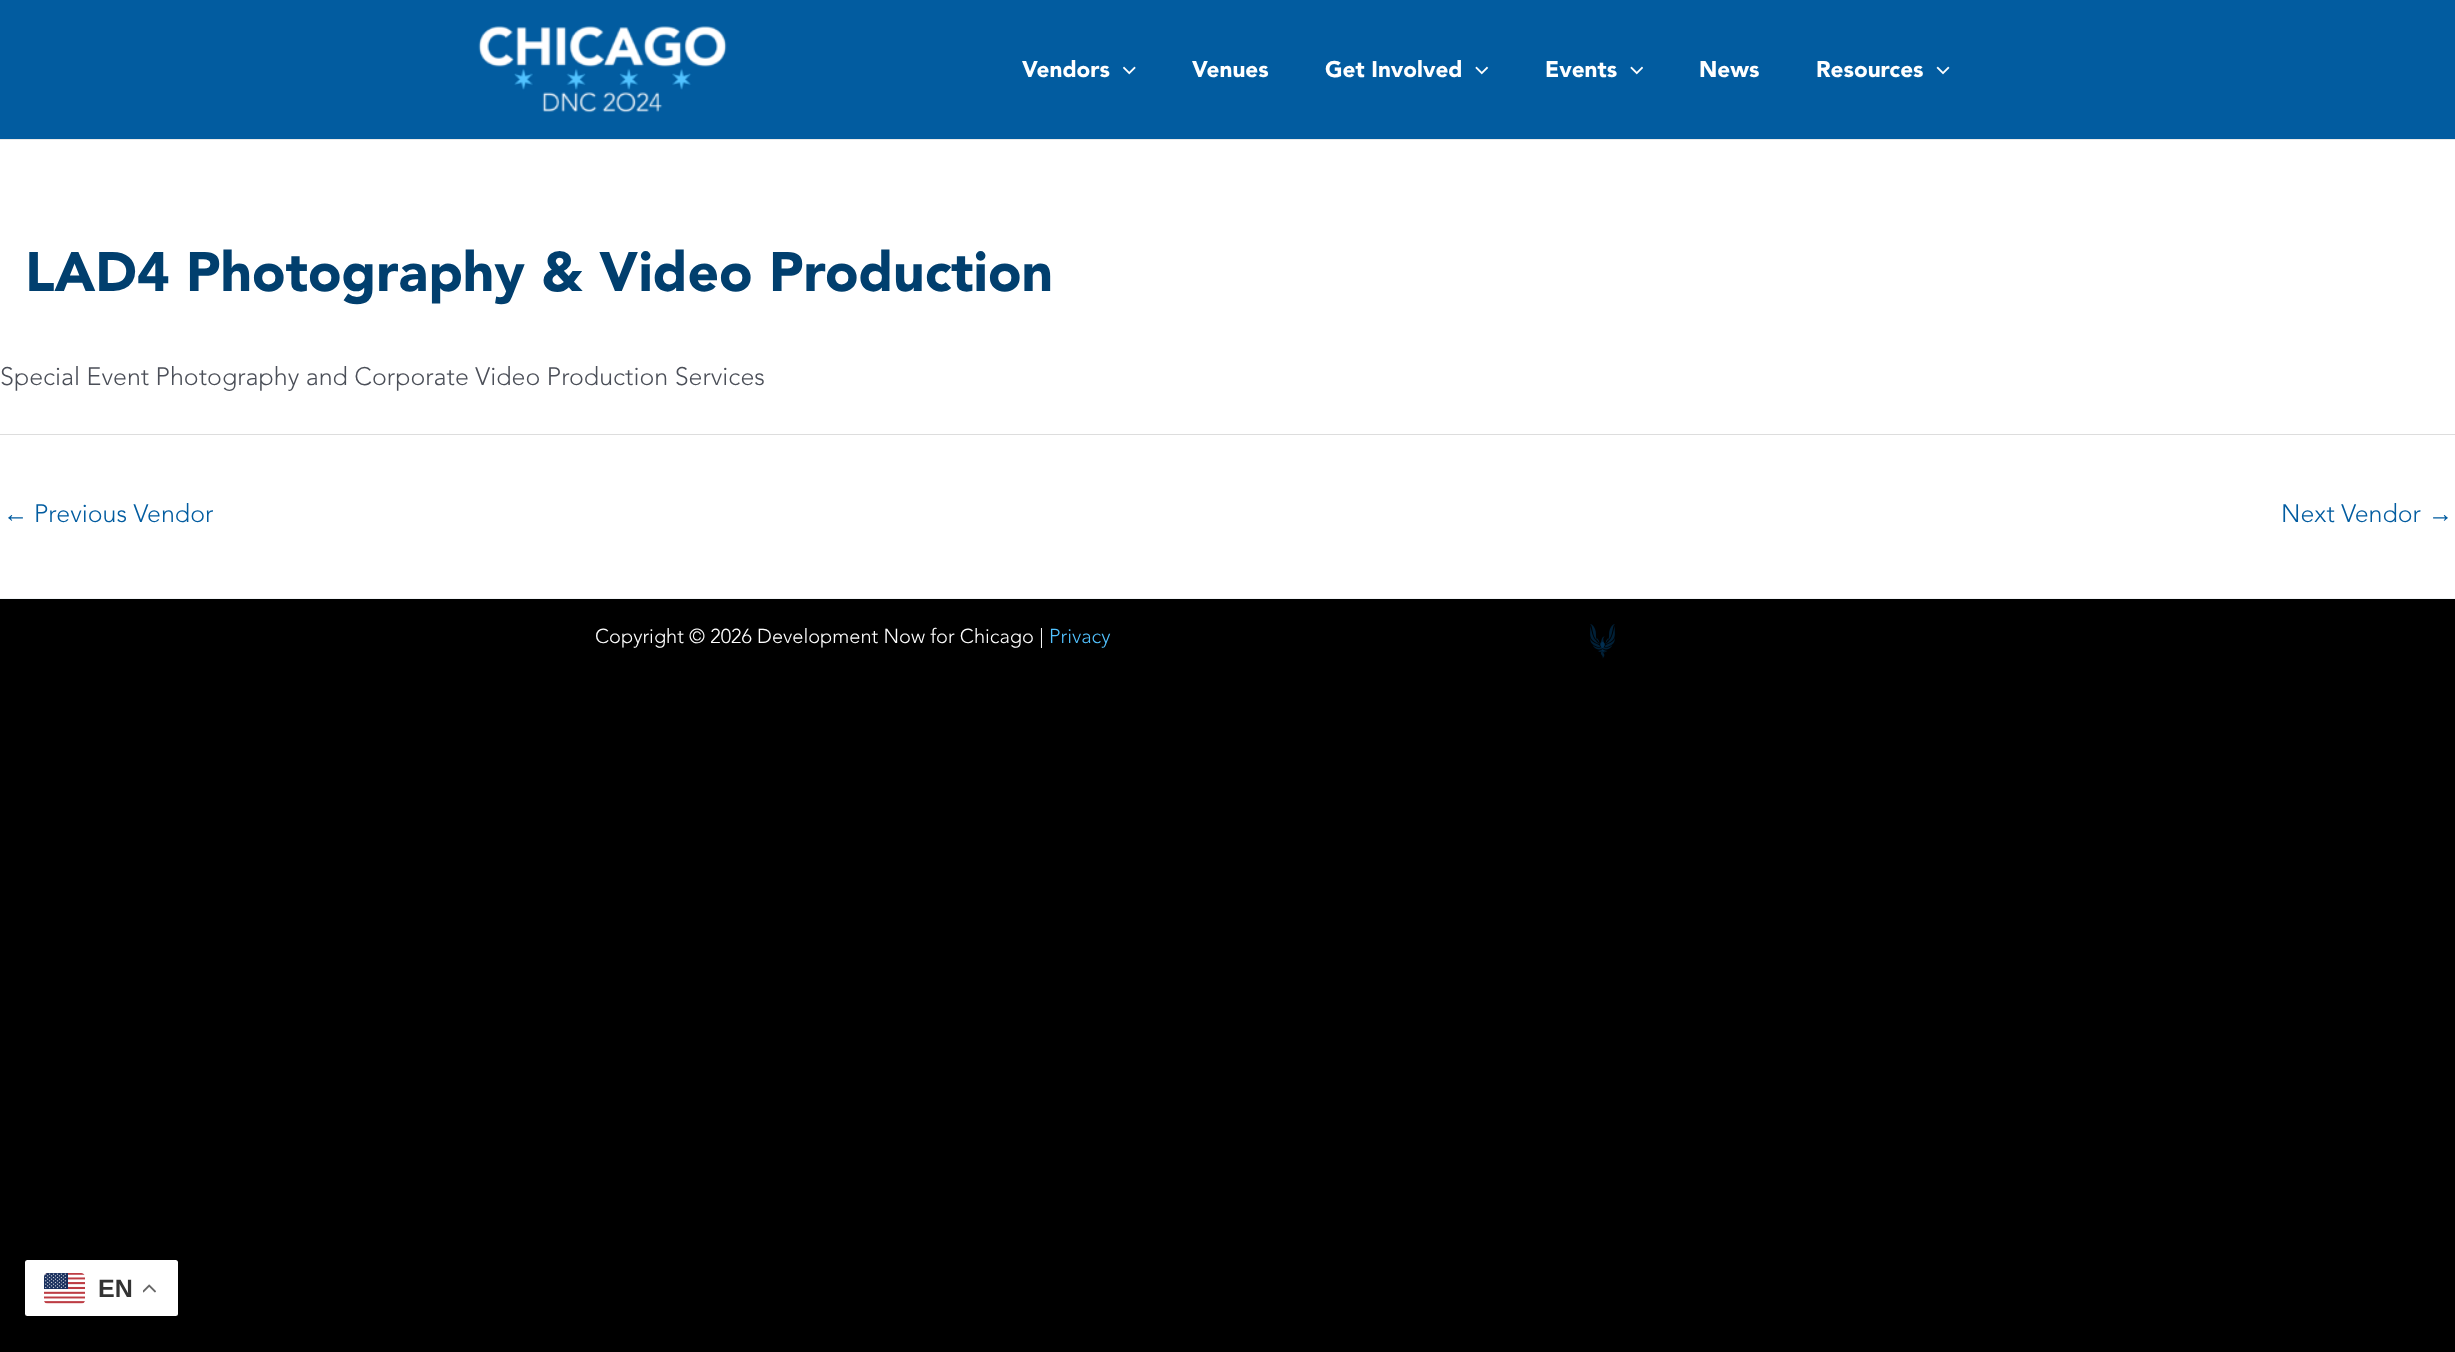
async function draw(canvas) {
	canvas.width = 2455;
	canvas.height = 1352;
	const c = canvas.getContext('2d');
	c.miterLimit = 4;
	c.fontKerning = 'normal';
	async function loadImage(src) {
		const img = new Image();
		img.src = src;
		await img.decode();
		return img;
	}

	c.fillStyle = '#000';
	c.fillRect(0, 0, 2455, 1352);
	for (const [x, y, w, h, color] of [
		[0, 140, 2455, 458, '#fff'],
		[0, 0, 2455, 139, '#025ca0'],
		[0, 139, 2455, 1, '#eaeaea'],
	]) {
		c.fillStyle = color;
		c.fillRect(x, y, w, h);
	}
	c.drawImage(await loadImage('img1.png'), 478, 26, 249, 87);
	c.font = '900 22.5px Avenir';
	c.fillStyle = '#fff';
	c.fillText('Vendors', 1022, 77);
	c.drawImage(await loadImage('img2.png'), 1123, 66, 13, 9);
	c.fillText('Venues', 1192, 77);
	c.fillText('Get Involved', 1325, 77);
	c.drawImage(await loadImage('img3.png'), 1475, 66, 14, 9);
	c.fillText('Events', 1545, 77);
	c.drawImage(await loadImage('img4.png'), 1630, 66, 13, 9);
	c.fillText('News', 1699, 77);
	c.fillText('Resources', 1816, 77);
	c.drawImage(await loadImage('img5.png'), 1936, 66, 14, 9);
	c.font = '900 55px Avenir';
	c.fillStyle = '#013f6e';
	c.fillText('LAD4 Photography & Video Production', 25, 291);
	c.font = '300 25px Avenir';
	c.fillStyle = '#4b4f58';
	c.fillText('Special Event Photography and Corporate Video Production Services', 0, 385);
	c.fillStyle = '#ddd';
	c.fillRect(0, 434, 2455, 1);
	c.font = '25px Liberation Sans';
	c.fillStyle = '#025ca0';
	c.fillText('←', 3, 522);
	c.font = '300 25px Avenir';
	c.fillText('Previous Vendor', 34, 522);
	c.fillText('Next Vendor', 2281, 522);
	c.font = '25px Liberation Sans';
	c.fillText('→', 2428, 522);
	c.fillStyle = '#f2f5f7';
	c.fillRect(0, 598, 2455, 1);
	c.font = '300 20px Avenir';
	c.fillStyle = '#fff';
	c.fillText('Copyright © 2026 Development Now for Chicago |', 595, 643);
	c.fillStyle = '#52c2ff';
	c.fillText('Privacy', 1049, 643);
	c.drawImage(await loadImage('img6.png'), 1590, 624, 25, 35);
	c.fillStyle = '#fff';
	c.beginPath();
	c.roundRect(25, 1260, 153, 56, 2.5);
	c.fill();
	c.drawImage(await loadImage('img7.png'), 44, 1273, 41, 31);
	c.font = 'bold 25px Liberation Sans';
	c.fillStyle = '#333';
	c.fillText('EN', 98, 1297);
	c.drawImage(await loadImage('img8.png'), 143, 1284, 13, 9);
}

draw(document.querySelector('canvas'));
